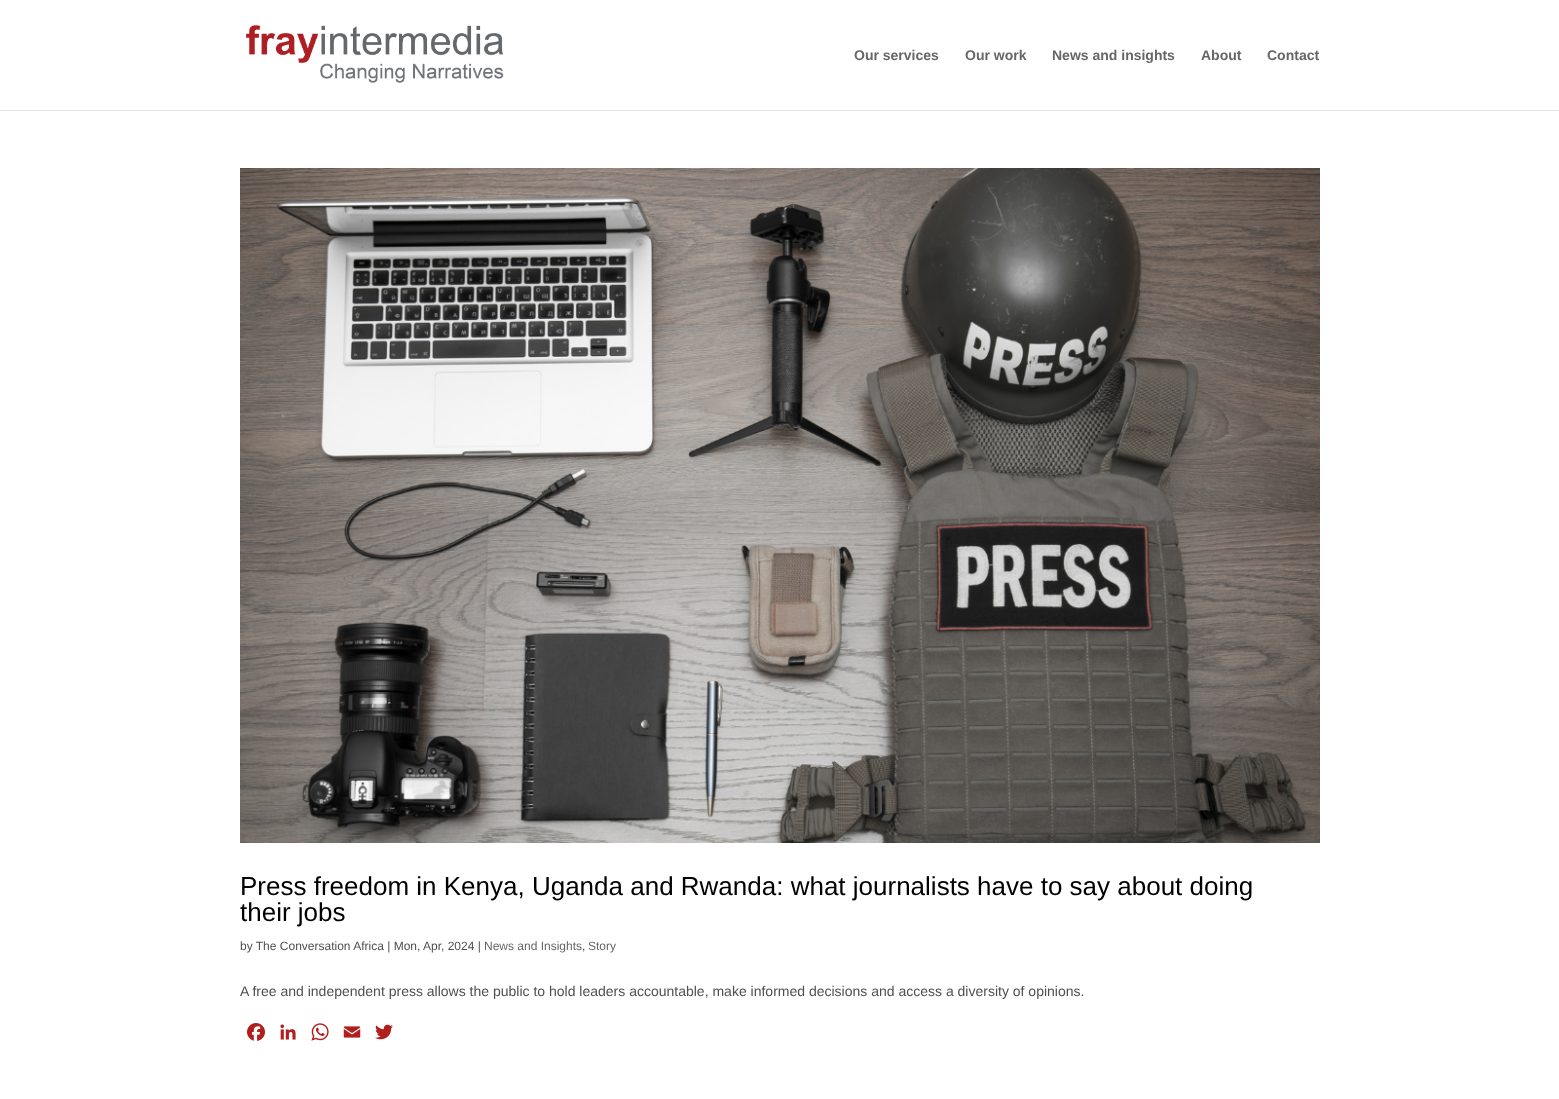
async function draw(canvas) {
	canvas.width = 1559;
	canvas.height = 1099;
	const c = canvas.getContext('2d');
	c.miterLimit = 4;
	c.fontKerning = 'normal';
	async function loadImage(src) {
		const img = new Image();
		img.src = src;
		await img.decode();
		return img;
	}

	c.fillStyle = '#fff';
	c.fillRect(0, 0, 1559, 1099);
	c.fillStyle = '#e6e6e6';
	c.fillRect(0, 110, 1559, 1);
	c.drawImage(await loadImage('img1.png'), 246, 25, 258, 58);
	c.font = 'bold 14px Liberation Sans';
	c.fillStyle = '#666';
	for (const [text, x, y] of [
		['Our services', 854, 60],
		['Our work', 965, 60],
		['News and insights', 1052, 60],
		['About', 1201, 60],
		['Contact', 1267, 60],
	]) {
		c.fillText(text, x, y);
	}
	c.drawImage(await loadImage('img2.png'), 240, 168, 1080, 675);
	c.font = '26px Liberation Sans';
	c.fillStyle = '#000';
	c.fillText('Press freedom in Kenya, Uganda and Rwanda: what journalists have to say about doing', 240, 895);
	c.fillText('their jobs', 240, 921);
	c.font = '12px Liberation Sans';
	c.fillStyle = '#4f4f4f';
	c.fillText('by The Conversation Africa | Mon, Apr, 2024 |', 240, 950);
	c.fillStyle = '#666';
	c.fillText('News and Insights', 484, 950);
	c.fillStyle = '#4f4f4f';
	c.fillText(',', 582, 950);
	c.fillStyle = '#666';
	c.fillText('Story', 588, 950);
	c.font = '14px Liberation Sans';
	c.fillStyle = '#4f4f4f';
	c.fillText('A free and independent press allows the public to hold leaders accountable, make informed decisions and access a diversity of opinions.', 240, 996);
	c.drawImage(await loadImage('img3.png'), 247, 1023, 18, 18);
	c.drawImage(await loadImage('img4.png'), 280, 1024, 16, 16);
	c.drawImage(await loadImage('img5.png'), 311, 1023, 18, 18);
	c.drawImage(await loadImage('img6.png'), 343, 1026, 18, 12);
	c.drawImage(await loadImage('img7.png'), 375, 1024, 18, 16);
}

draw(document.querySelector('canvas'));
